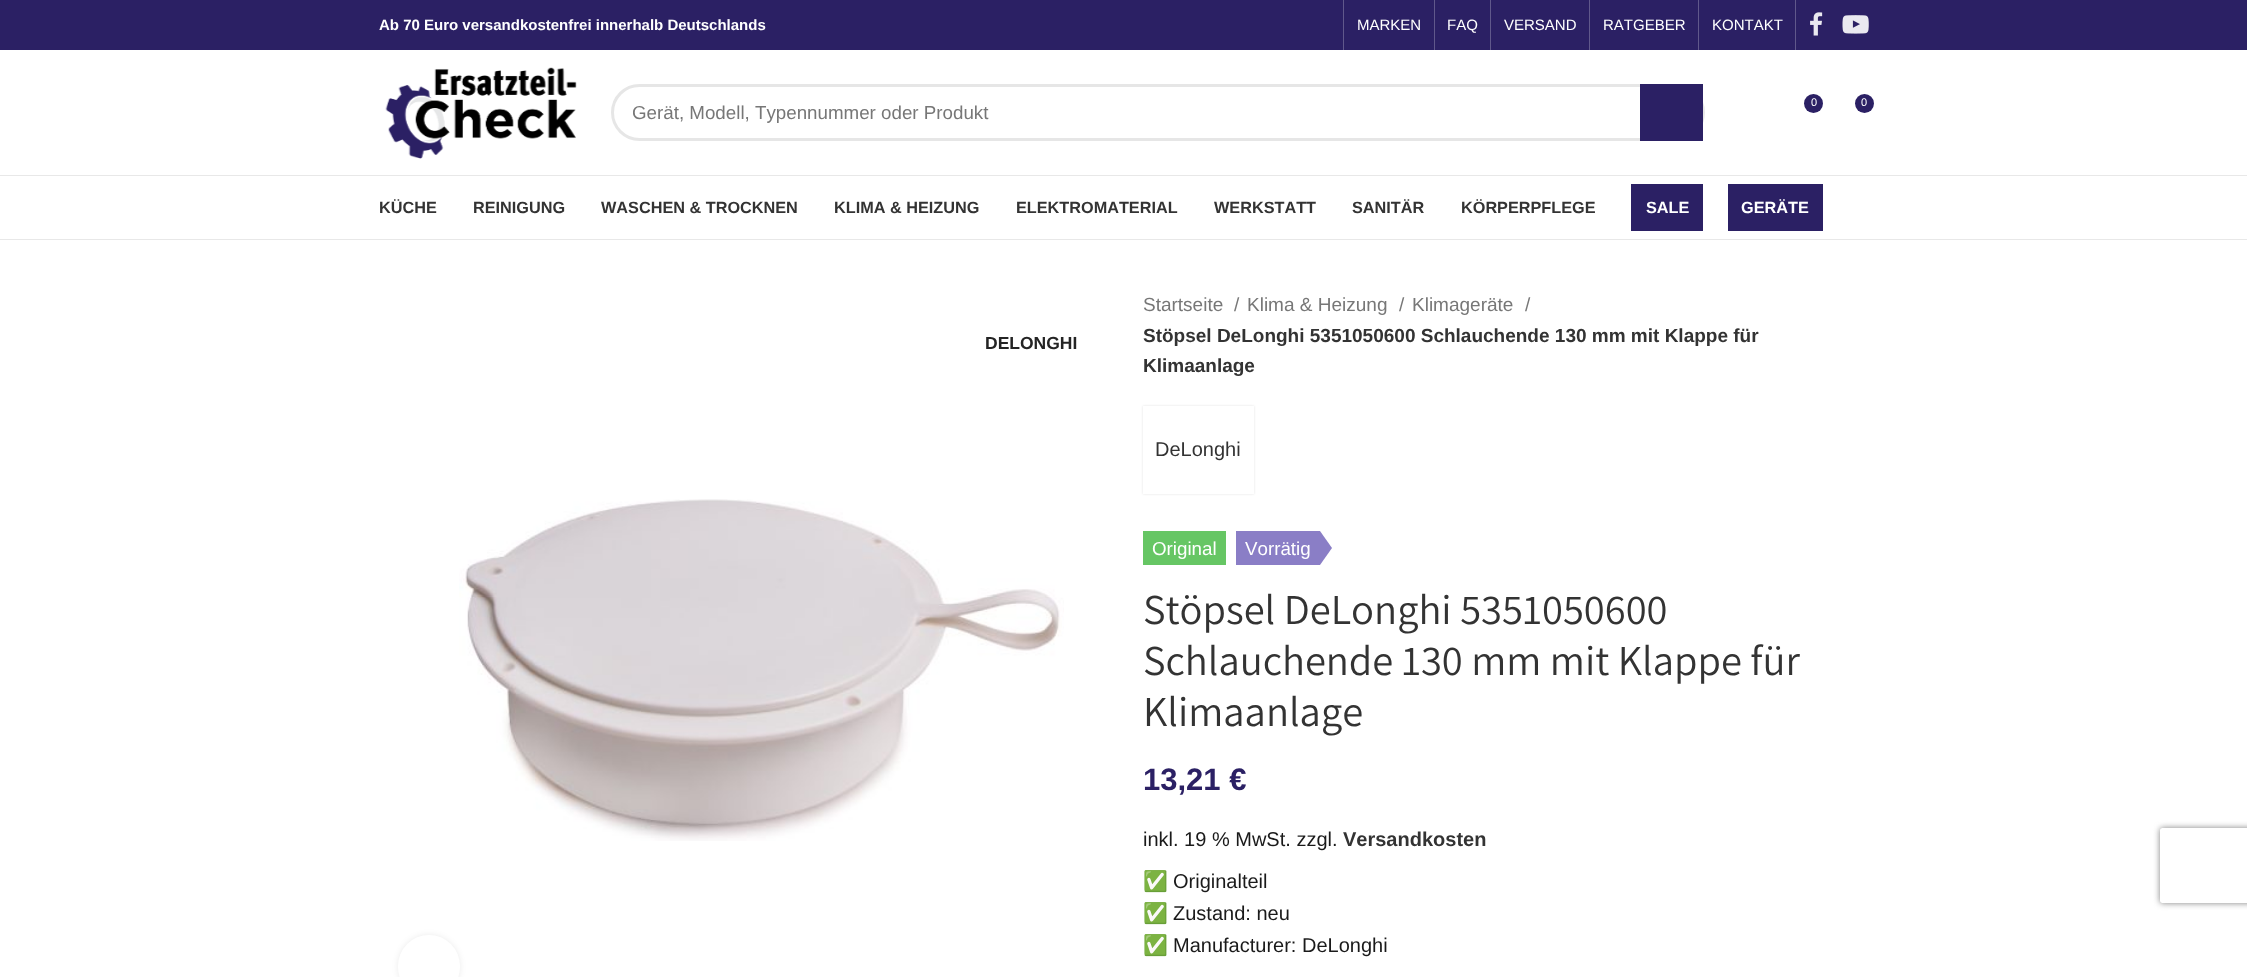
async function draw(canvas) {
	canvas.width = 2247;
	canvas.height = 977;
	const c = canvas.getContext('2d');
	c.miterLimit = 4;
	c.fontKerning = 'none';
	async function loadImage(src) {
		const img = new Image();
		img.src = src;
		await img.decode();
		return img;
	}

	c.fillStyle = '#fff';
	c.fillRect(0, 0, 2247, 977);
	c.fillStyle = '#2b2064';
	c.fillRect(0, 0, 2247, 50);
	c.font = 'bold 15px Liberation Sans';
	c.fillStyle = '#fff';
	c.fillText('Ab 70 Euro versandkostenfrei innerhalb Deutschlands', 379, 30);
	c.fillStyle = '#60588b';
	c.fillRect(1343, 0, 1, 50);
	c.font = '15px Liberation Sans';
	c.fillStyle = '#fff';
	c.fillText('MARKEN', 1357, 30);
	c.fillStyle = '#60588b';
	c.fillRect(1434, 0, 1, 50);
	c.fillStyle = '#fff';
	c.fillText('FAQ', 1447, 30);
	c.fillStyle = '#60588b';
	c.fillRect(1490, 0, 1, 50);
	c.fillStyle = '#fff';
	c.fillText('VERSAND', 1504, 30);
	c.fillStyle = '#60588b';
	c.fillRect(1589, 0, 1, 50);
	c.fillStyle = '#fff';
	c.fillText('RATGEBER', 1603, 30);
	c.fillStyle = '#60588b';
	c.fillRect(1698, 0, 1, 50);
	c.fillStyle = '#fff';
	c.fillText('KONTAKT', 1712, 30);
	c.fillStyle = '#60588b';
	c.fillRect(1795, 0, 1, 50);
	c.drawImage(await loadImage('img1.png'), 1810, 12, 13, 24);
	c.drawImage(await loadImage('img2.png'), 1842, 15, 27, 19);
	c.fillStyle = '#e8e8e8';
	c.fillRect(0, 175, 2247, 1);
	c.drawImage(await loadImage('img3.png'), 385, 67, 192, 92);
	c.fillStyle = '#2b2064';
	c.beginPath();
	c.arc(1813.5, 103.5, 9.5, 0, 2 * Math.PI);
	c.fill();
	c.font = '11px Liberation Sans';
	c.fillStyle = '#fff';
	c.fillText('0', 1811, 106);
	c.fillStyle = '#2b2064';
	c.beginPath();
	c.arc(1864.5, 103.5, 9.5, 0, 2 * Math.PI);
	c.fill();
	c.fillStyle = '#fff';
	c.fillText('0', 1861, 106);
	c.beginPath();
	c.roundRect(612.5, 85.5, 1091, 54, 27);
	c.strokeStyle = '#e6e6e6';
	c.lineWidth = 3;
	c.stroke();
	c.save();
	c.beginPath();
	c.rect(633, 103, 1007, 21);
	c.clip();
	c.font = '18.75px Liberation Sans';
	c.fillStyle = '#777';
	c.fillText('Gerät, Modell, Typennummer oder Produkt', 632, 119);
	c.restore();
	c.fillStyle = '#2b2064';
	c.fillRect(1640, 84, 63, 57);
	c.fillStyle = '#e8e8e8';
	c.fillRect(0, 239, 2247, 1);
	c.font = 'bold 16.25px Liberation Sans';
	c.fillStyle = '#333';
	for (const [text, x, y] of [
		['KÜCHE', 379, 213],
		['REINIGUNG', 473, 213],
		['WASCHEN & TROCKNEN', 601, 213],
		['KLIMA & HEIZUNG', 834, 213],
		['ELEKTROMATERIAL', 1016, 213],
		['WERKSTATT', 1214, 213],
		['SANITÄR', 1352, 213],
		['KÖRPERPFLEGE', 1461, 213],
	]) {
		c.fillText(text, x, y);
	}
	c.fillStyle = '#2b2064';
	c.fillRect(1631, 184, 72, 47);
	c.fillStyle = '#fff';
	c.fillText('SALE', 1646, 213);
	c.fillStyle = '#2b2064';
	c.fillRect(1728, 184, 95, 47);
	c.fillStyle = '#fff';
	c.fillText('GERÄTE', 1741, 213);
	c.font = 'bold 17.5px Liberation Sans';
	c.fillStyle = '#242424';
	c.fillText('DELONGHI', 985, 349);
	c.drawImage(await loadImage('img4.png'), 459, 499, 605, 342);
	c.fillStyle = '#00000014';
	c.filter = 'blur(3px)';
	c.beginPath();
	c.roundRect(398, 935, 62, 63, 31);
	c.fill();
	c.filter = 'none';
	c.fillStyle = '#fff';
	c.beginPath();
	c.roundRect(398, 935, 62, 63, 31);
	c.fill();
	c.font = '19px Liberation Sans';
	c.fillStyle = '#777';
	for (const [text, x, y] of [
		['Startseite', 1143, 311],
		['/', 1234, 311],
		['Klima & Heizung', 1247, 311],
		['/', 1399, 311],
		['Klimageräte', 1412, 311],
		['/', 1525, 311],
	]) {
		c.fillText(text, x, y);
	}
	c.font = 'bold 19px Liberation Sans';
	c.fillStyle = '#333';
	c.fillText('Stöpsel DeLonghi 5351050600 Schlauchende 130 mm mit Klappe für', 1143, 342);
	c.fillText('Klimaanlage', 1143, 372);
	c.fillStyle = '#0000001f';
	c.filter = 'blur(1px)';
	c.beginPath();
	c.rect(1143, 406, 111, 88);
	c.fill();
	c.filter = 'none';
	c.fillStyle = '#fff';
	c.fillRect(1143, 406, 111, 88);
	c.font = '20px Liberation Sans';
	c.fillStyle = '#333';
	c.fillText('DeLonghi', 1155, 456);
	c.fillStyle = '#66c664';
	c.fillRect(1143, 531, 83, 34);
	c.font = '18.75px Liberation Sans';
	c.fillStyle = '#fff';
	c.fillText('Original', 1152, 555);
	c.fillStyle = '#8a7ec6';
	c.fillRect(1236, 531, 84, 34);
	c.fillStyle = '#fff';
	c.fillText('Vorrätig', 1245, 555);
	c.fillStyle = '#8a7ec6';
	c.beginPath();
	c.moveTo(1320, 531);
	c.lineTo(1320, 565);
	c.lineTo(1332, 548);
	c.closePath();
	c.fill();
	c.font = '42.5px Assistant';
	c.fillStyle = '#333';
	for (const [text, x, y] of [
		['Stöpsel DeLonghi 5351050600', 1143, 624],
		['Schlauchende 130 mm mit Klappe für', 1143, 675],
		['Klimaanlage', 1143, 726],
	]) {
		c.fillText(text, x, y);
	}
	c.font = 'bold 31px Liberation Sans';
	c.fillStyle = '#2b2064';
	c.fillText('13,21 €', 1143, 790);
	c.font = '20px Liberation Sans';
	c.fillStyle = '#1a1a1a';
	c.fillText('inkl. 19 % MwSt. zzgl.', 1143, 846);
	c.font = 'bold 20px Liberation Sans';
	c.fillStyle = '#333';
	c.fillText('Versandkosten', 1343, 846);
	c.font = '20px Noto Color Emoji';
	c.fillStyle = '#1a1a1a';
	c.fillText('✅', 1143, 888);
	c.font = '20px Liberation Sans';
	c.fillText('Originalteil', 1173, 888);
	c.font = '20px Noto Color Emoji';
	c.fillText('✅', 1143, 920);
	c.font = '20px Liberation Sans';
	c.fillText('Zustand: neu', 1173, 920);
	c.font = '20px Noto Color Emoji';
	c.fillText('✅', 1143, 952);
	c.font = '20px Liberation Sans';
	c.fillText('Manufacturer: DeLonghi', 1173, 952);
	c.save();
	c.beginPath();
	c.moveTo(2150, 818);
	c.lineTo(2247, 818);
	c.lineTo(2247, 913);
	c.lineTo(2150, 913);
	c.closePath();
	c.moveTo(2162.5, 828);
	c.lineTo(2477.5, 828);
	c.bezierCurveTo(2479, 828, 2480, 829, 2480, 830.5);
	c.lineTo(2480, 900.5);
	c.bezierCurveTo(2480, 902, 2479, 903, 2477.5, 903);
	c.lineTo(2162.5, 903);
	c.bezierCurveTo(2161, 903, 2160, 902, 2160, 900.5);
	c.lineTo(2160, 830.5);
	c.bezierCurveTo(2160, 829, 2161, 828, 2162.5, 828);
	c.closePath();
	c.clip('evenodd');
	c.fillStyle = '#808080';
	c.filter = 'blur(3px)';
	c.beginPath();
	c.roundRect(2160, 828, 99, 75, 2.5);
	c.fill();
	c.filter = 'none';
	c.restore();
}

draw(document.querySelector('canvas'));
